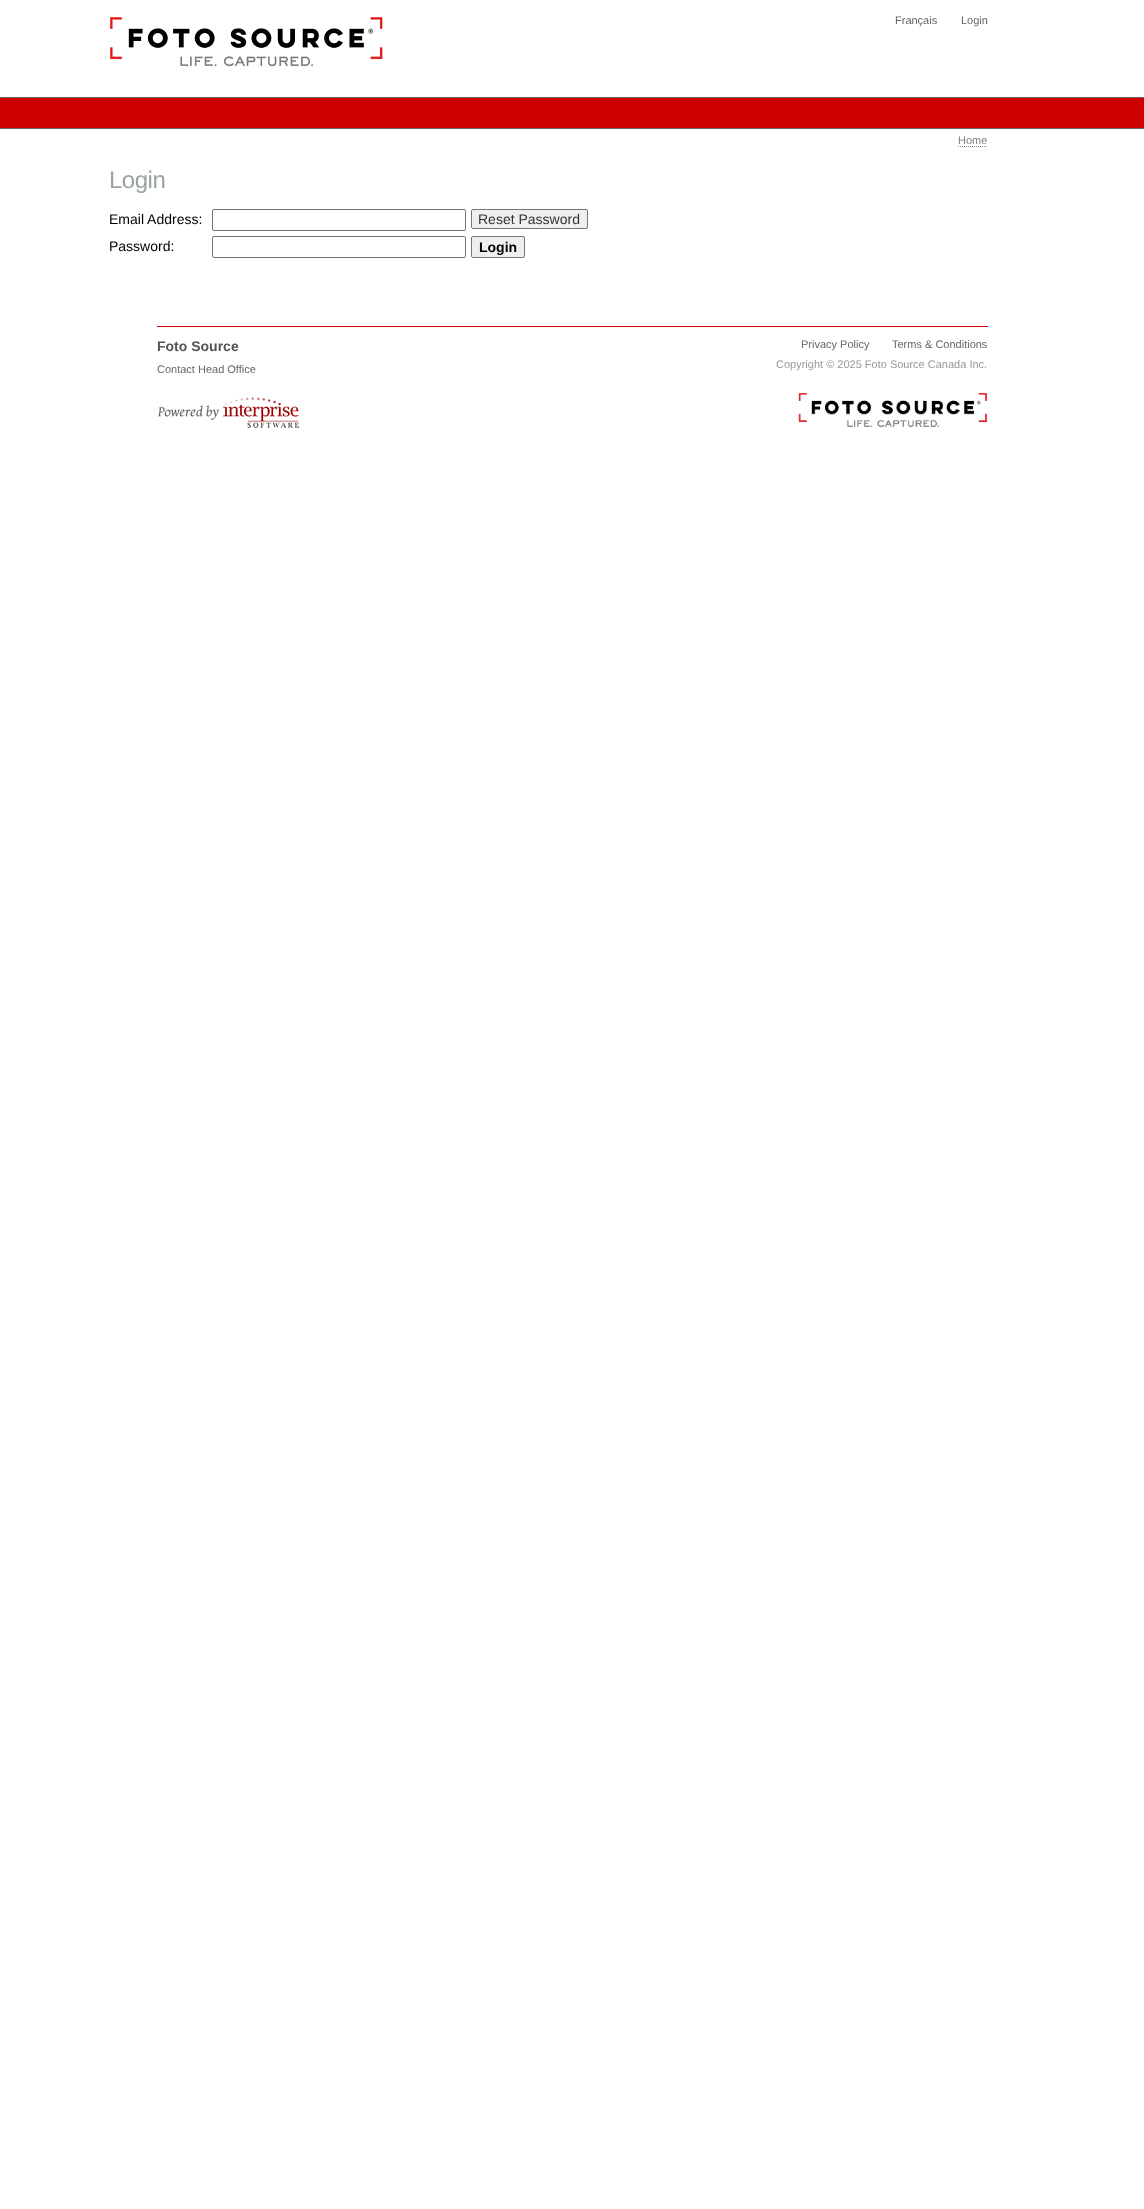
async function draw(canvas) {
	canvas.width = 1144;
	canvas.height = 2209;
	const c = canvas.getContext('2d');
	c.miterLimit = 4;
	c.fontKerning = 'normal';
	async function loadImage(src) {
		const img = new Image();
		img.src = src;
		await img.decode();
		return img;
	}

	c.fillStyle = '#fff';
	c.fillRect(0, 0, 1144, 2209);
	c.drawImage(await loadImage('img1.png'), 110, 17, 273, 50);
	c.font = '11px Liberation Sans';
	c.fillStyle = '#666';
	c.fillText('Français', 895, 24);
	c.fillText('Login', 961, 24);
	for (const [x, y, w, h, color] of [
		[0, 98, 1144, 30, '#c00'],
		[0, 97, 1144, 1, '#666'],
		[0, 128, 1144, 1, '#666'],
	]) {
		c.fillStyle = color;
		c.fillRect(x, y, w, h);
	}
	c.fillStyle = '#808080';
	c.fillText('Home', 958, 144);
	c.beginPath();
	c.moveTo(958, 146.5);
	c.lineTo(988, 146.5);
	c.strokeStyle = '#888';
	c.setLineDash([1, 1]);
	c.stroke();
	c.letterSpacing = '-0.5px';
	c.font = '24px Liberation Sans';
	c.fillStyle = '#99a49e';
	c.fillText('Login', 109, 188);
	c.letterSpacing = '0px';
	c.font = '14px Liberation Sans';
	c.fillStyle = '#000';
	c.fillText('Email Address:', 109, 224);
	c.beginPath();
	c.roundRect(212.5, 209.5, 253, 21, 1.5);
	c.strokeStyle = '#767676';
	c.setLineDash([]);
	c.stroke();
	c.fillStyle = '#efefef';
	c.beginPath();
	c.roundRect(471.5, 209.5, 116, 19, 1.5);
	c.fill();
	c.stroke();
	c.fillStyle = '#333';
	c.fillText('Reset Password', 478, 224);
	c.fillStyle = '#000';
	c.fillText('Password:', 109, 251);
	c.beginPath();
	c.roundRect(212.5, 236.5, 253, 21, 1.5);
	c.stroke();
	c.fillStyle = '#efefef';
	c.beginPath();
	c.roundRect(471.5, 236.5, 53, 21, 1.5);
	c.fill();
	c.stroke();
	c.font = 'bold 14px Liberation Sans';
	c.fillStyle = '#000';
	c.fillText('Login', 479, 252);
	c.fillStyle = '#c00';
	c.fillRect(157, 326, 831, 1);
	c.fillStyle = '#555';
	c.fillText('Foto Source', 157, 351);
	c.font = '11px Liberation Sans';
	c.fillStyle = '#666';
	c.fillText('Privacy Policy', 801, 348);
	c.fillText('Terms & Conditions', 892, 348);
	c.fillStyle = '#999';
	c.fillText('Copyright © 2025 Foto Source Canada Inc.', 776, 368);
	c.drawImage(await loadImage('img2.png'), 798, 393, 190, 35);
	c.fillStyle = '#666';
	c.fillText('Contact Head Office', 157, 373);
	c.drawImage(await loadImage('img3.png'), 157, 397, 142, 31);
}

draw(document.querySelector('canvas'));
